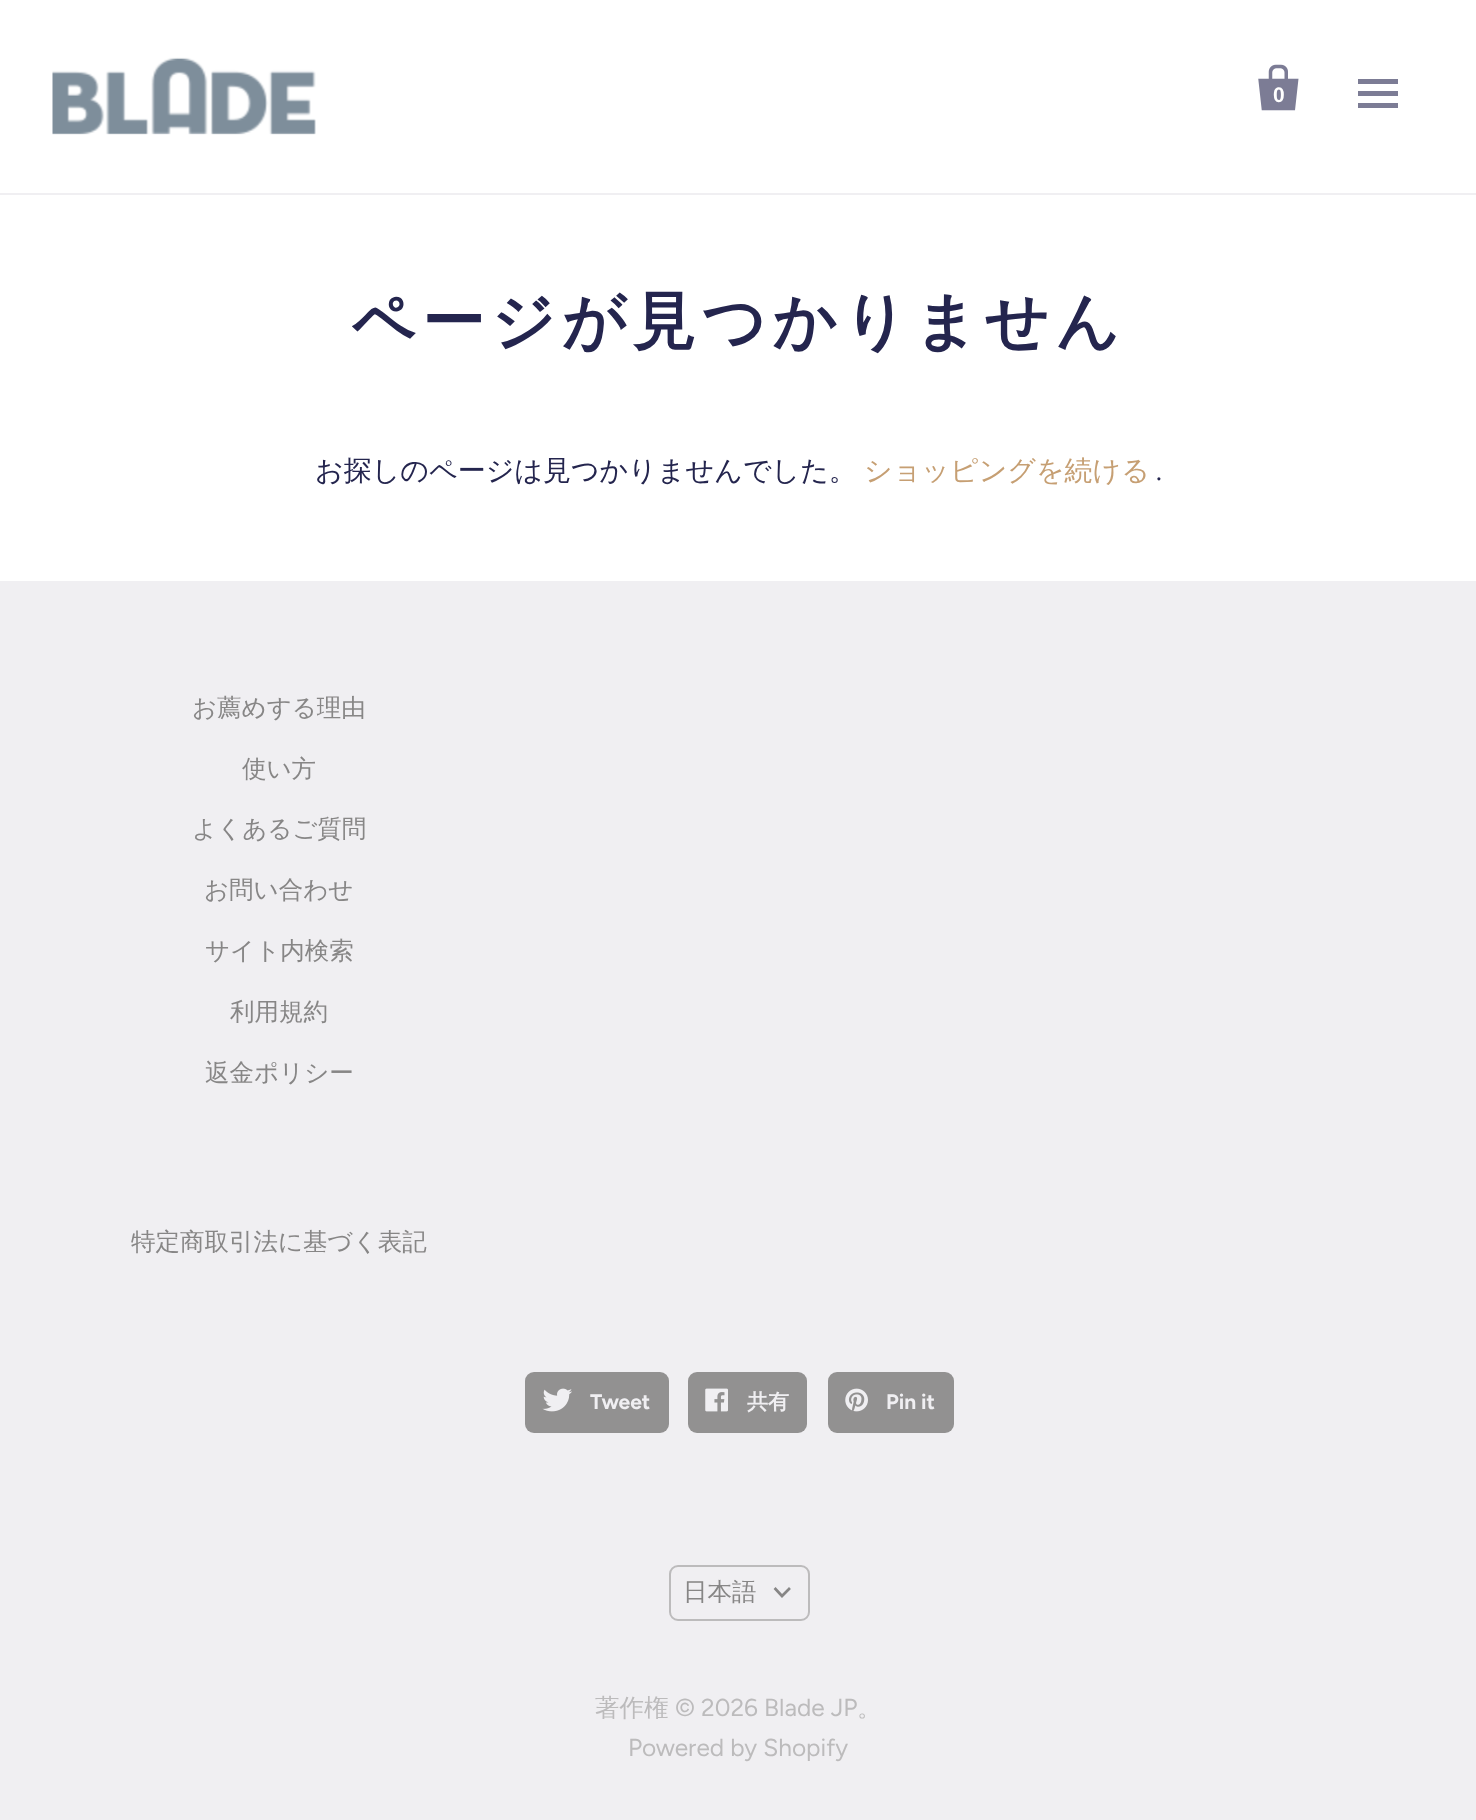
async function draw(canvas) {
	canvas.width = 1476;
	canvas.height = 1820;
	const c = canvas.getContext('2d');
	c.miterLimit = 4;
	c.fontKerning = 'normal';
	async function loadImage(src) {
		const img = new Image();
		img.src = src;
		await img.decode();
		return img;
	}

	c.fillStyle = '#fff';
	c.fillRect(0, 0, 1476, 1820);
	c.fillStyle = '#f0eff2';
	c.fillRect(0, 193, 1476, 2);
	c.drawImage(await loadImage('img1.png'), 52, 57, 264, 78);
	c.drawImage(await loadImage('img2.png'), 1258, 64, 41, 47);
	c.font = 'bold 21px Liberation Sans';
	c.fillStyle = '#fff';
	c.fillText('0', 1273, 102);
	for (const [x, y, w, h, color] of [
		[1358, 91, 40, 5, '#7c7c95'],
		[1358, 79, 40, 5, '#7c7c95'],
		[1358, 103, 40, 5, '#7c7c95'],
	]) {
		c.fillStyle = color;
		c.fillRect(x, y, w, h);
	}
	c.letterSpacing = '6.25px';
	c.font = 'bold 63px WenQuanYi Zen Hei';
	c.fillStyle = '#24254e';
	c.fillText('ページが見つかりません', 351, 343);
	c.letterSpacing = '0px';
	c.font = '500 28px WenQuanYi Zen Hei';
	c.fillText('お探しのページは見つかりませんでした。', 315, 480);
	c.fillStyle = '#c69f73';
	c.fillText('ショッピングを続ける', 864, 480);
	c.font = '28px Figtree';
	c.fillStyle = '#24254e';
	c.fillText('.', 1156, 480);
	c.fillStyle = '#f0eff2';
	c.fillRect(0, 581, 1476, 1239);
	c.font = '500 24.5px WenQuanYi Zen Hei';
	c.fillStyle = '#878686';
	for (const [text, x, y] of [
		['お薦めする理由', 192, 716],
		['使い方', 242, 777],
		['よくあるご質問', 192, 837],
		['お問い合わせ', 204, 898],
		['サイト内検索', 205, 959],
		['利用規約', 230, 1020],
		['返金ポリシー', 205, 1081],
		['特定商取引法に基づく表記', 131, 1250],
	]) {
		c.fillText(text, x, y);
	}
	c.fillStyle = '#929191';
	c.beginPath();
	c.roundRect(525, 1372, 144, 61, 9);
	c.fill();
	c.drawImage(await loadImage('img3.png'), 542, 1388, 30, 24);
	c.font = 'bold 21px Figtree';
	c.fillStyle = '#f0eff2';
	c.fillText('Tweet', 590, 1409);
	c.fillStyle = '#929191';
	c.beginPath();
	c.roundRect(688, 1372, 119, 61, 9);
	c.fill();
	c.drawImage(await loadImage('img4.png'), 705, 1388, 23, 24);
	c.font = 'bold 21px WenQuanYi Zen Hei';
	c.fillStyle = '#f0eff2';
	c.fillText('共有', 747, 1409);
	c.fillStyle = '#929191';
	c.beginPath();
	c.roundRect(828, 1372, 126, 61, 9);
	c.fill();
	c.drawImage(await loadImage('img5.png'), 845, 1388, 23, 24);
	c.font = 'bold 21px Figtree';
	c.fillStyle = '#f0eff2';
	c.fillText('Pin it', 886, 1409);
	c.beginPath();
	c.roundRect(670, 1566, 139, 54, 8);
	c.strokeStyle = '#bcbbbc';
	c.lineWidth = 2;
	c.stroke();
	c.font = '500 24.5px WenQuanYi Zen Hei';
	c.fillStyle = '#878686';
	c.fillText('日本語', 683, 1600);
	c.beginPath();
	c.moveTo(782, 1596);
	c.lineTo(789, 1589);
	c.moveTo(782, 1596);
	c.lineTo(775.5, 1589);
	c.strokeStyle = '#878686';
	c.lineWidth = 2.7;
	c.lineCap = 'square';
	c.stroke();
	c.fillStyle = '#bcbbbc';
	c.fillText('著作権', 595, 1716);
	c.font = '24.5px Figtree';
	c.fillText('© 2026 Blade JP', 675, 1716);
	c.font = '500 24.5px WenQuanYi Zen Hei';
	c.fillText('。', 857, 1716);
	c.font = '24.5px Figtree';
	c.fillText('Powered by Shopify', 628, 1756);
}

draw(document.querySelector('canvas'));
